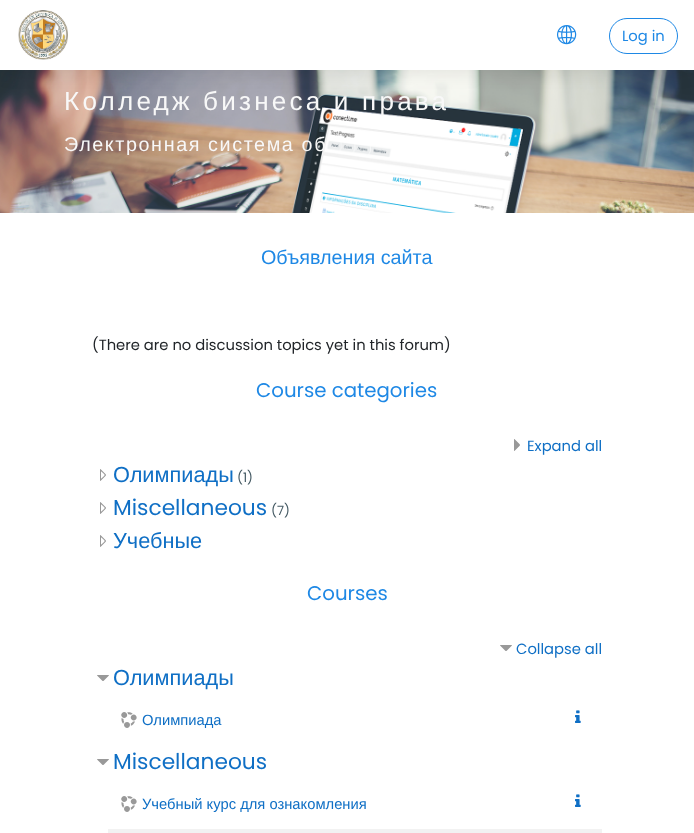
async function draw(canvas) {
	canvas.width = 694;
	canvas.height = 833;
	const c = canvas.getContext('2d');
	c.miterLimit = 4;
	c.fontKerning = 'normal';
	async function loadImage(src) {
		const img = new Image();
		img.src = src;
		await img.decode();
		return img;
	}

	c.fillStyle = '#fff';
	c.fillRect(0, 0, 694, 833);
	c.drawImage(await loadImage('img3.png'), 0, 70, 694, 143);
	c.fillStyle = '#0000001a';
	c.filter = 'blur(10px)';
	c.beginPath();
	c.rect(0, 0, 694, 70);
	c.fill();
	c.filter = 'none';
	c.fillStyle = '#fff';
	c.fillRect(0, 0, 694, 70);
	c.drawImage(await loadImage('img1.png'), 18, 10, 50, 50);
	c.drawImage(await loadImage('img2.png'), 557, 25, 20, 20);
	c.beginPath();
	c.roundRect(609.5, 18.5, 68, 35, 17.5);
	c.strokeStyle = '#1e88e5';
	c.stroke();
	c.font = '14.75px Poppins';
	c.fillStyle = '#1e88e5';
	c.fillText('Log in', 622, 41);
	c.letterSpacing = '3.2px';
	c.font = '26.1px Liberation Sans';
	c.fillStyle = '#f8f8f8';
	c.fillText('Колледж бизнеса и права', 64, 110);
	c.letterSpacing = '1.6px';
	c.font = '19.75px Liberation Sans';
	c.fillText('Электронная система об', 64, 151);
	c.letterSpacing = '0px';
	c.fillStyle = '#1e88e5';
	c.fillText('Объявления сайта', 261, 264);
	c.font = '14.75px Poppins';
	c.fillStyle = '#212529';
	c.fillText('(There are no discussion topics yet in this forum)', 92, 350);
	c.font = '19.75px Poppins';
	c.fillStyle = '#1e88e5';
	c.fillText('Course categories', 256, 397);
	c.drawImage(await loadImage('img4.png'), 514, 439, 6, 12);
	c.font = '14.75px Poppins';
	c.fillStyle = '#0f6fc5';
	c.fillText('Expand all', 527, 451);
	c.drawImage(await loadImage('img5.png'), 100, 469, 6, 12);
	c.font = '21.75px Liberation Sans';
	c.fillText('Олимпиады', 113, 482);
	c.font = '13px Poppins';
	c.fillStyle = '#455a64';
	c.fillText('(1)', 237, 482);
	c.drawImage(await loadImage('img6.png'), 100, 502, 6, 12);
	c.font = '21.75px Poppins';
	c.fillStyle = '#0f6fc5';
	c.fillText('Miscellaneous', 113, 515);
	c.font = '13px Poppins';
	c.fillStyle = '#455a64';
	c.fillText('(7)', 271, 515);
	c.drawImage(await loadImage('img5.png'), 100, 535, 6, 12);
	c.font = '21.75px Liberation Sans';
	c.fillStyle = '#0f6fc5';
	c.fillText('Учебные', 113, 548);
	c.font = '19.75px Poppins';
	c.fillStyle = '#1e88e5';
	c.fillText('Courses', 307, 600);
	c.drawImage(await loadImage('img7.png'), 500, 645, 12, 6);
	c.font = '14.75px Poppins';
	c.fillStyle = '#0f6fc5';
	c.fillText('Collapse all', 516, 654);
	c.drawImage(await loadImage('img8.png'), 97, 675, 12, 6);
	c.font = '21.75px Liberation Sans';
	c.fillText('Олимпиады', 113, 685);
	c.drawImage(await loadImage('img9.png'), 121, 712, 16, 16);
	c.font = '14.75px Liberation Sans';
	c.fillText('Олимпиада', 142, 725);
	c.drawImage(await loadImage('img10.png'), 575, 710, 6, 13);
	c.drawImage(await loadImage('img11.png'), 97, 759, 12, 6);
	c.font = '21.75px Poppins';
	c.fillText('Miscellaneous', 113, 769);
	c.drawImage(await loadImage('img9.png'), 121, 796, 16, 16);
	c.font = '14.75px Liberation Sans';
	c.fillText('Учебный курс для ознакомления', 142, 809);
	c.drawImage(await loadImage('img10.png'), 575, 794, 6, 13);
	c.fillStyle = '#f2f2f2';
	c.fillRect(108, 829, 494, 4);
}

draw(document.querySelector('canvas'));
